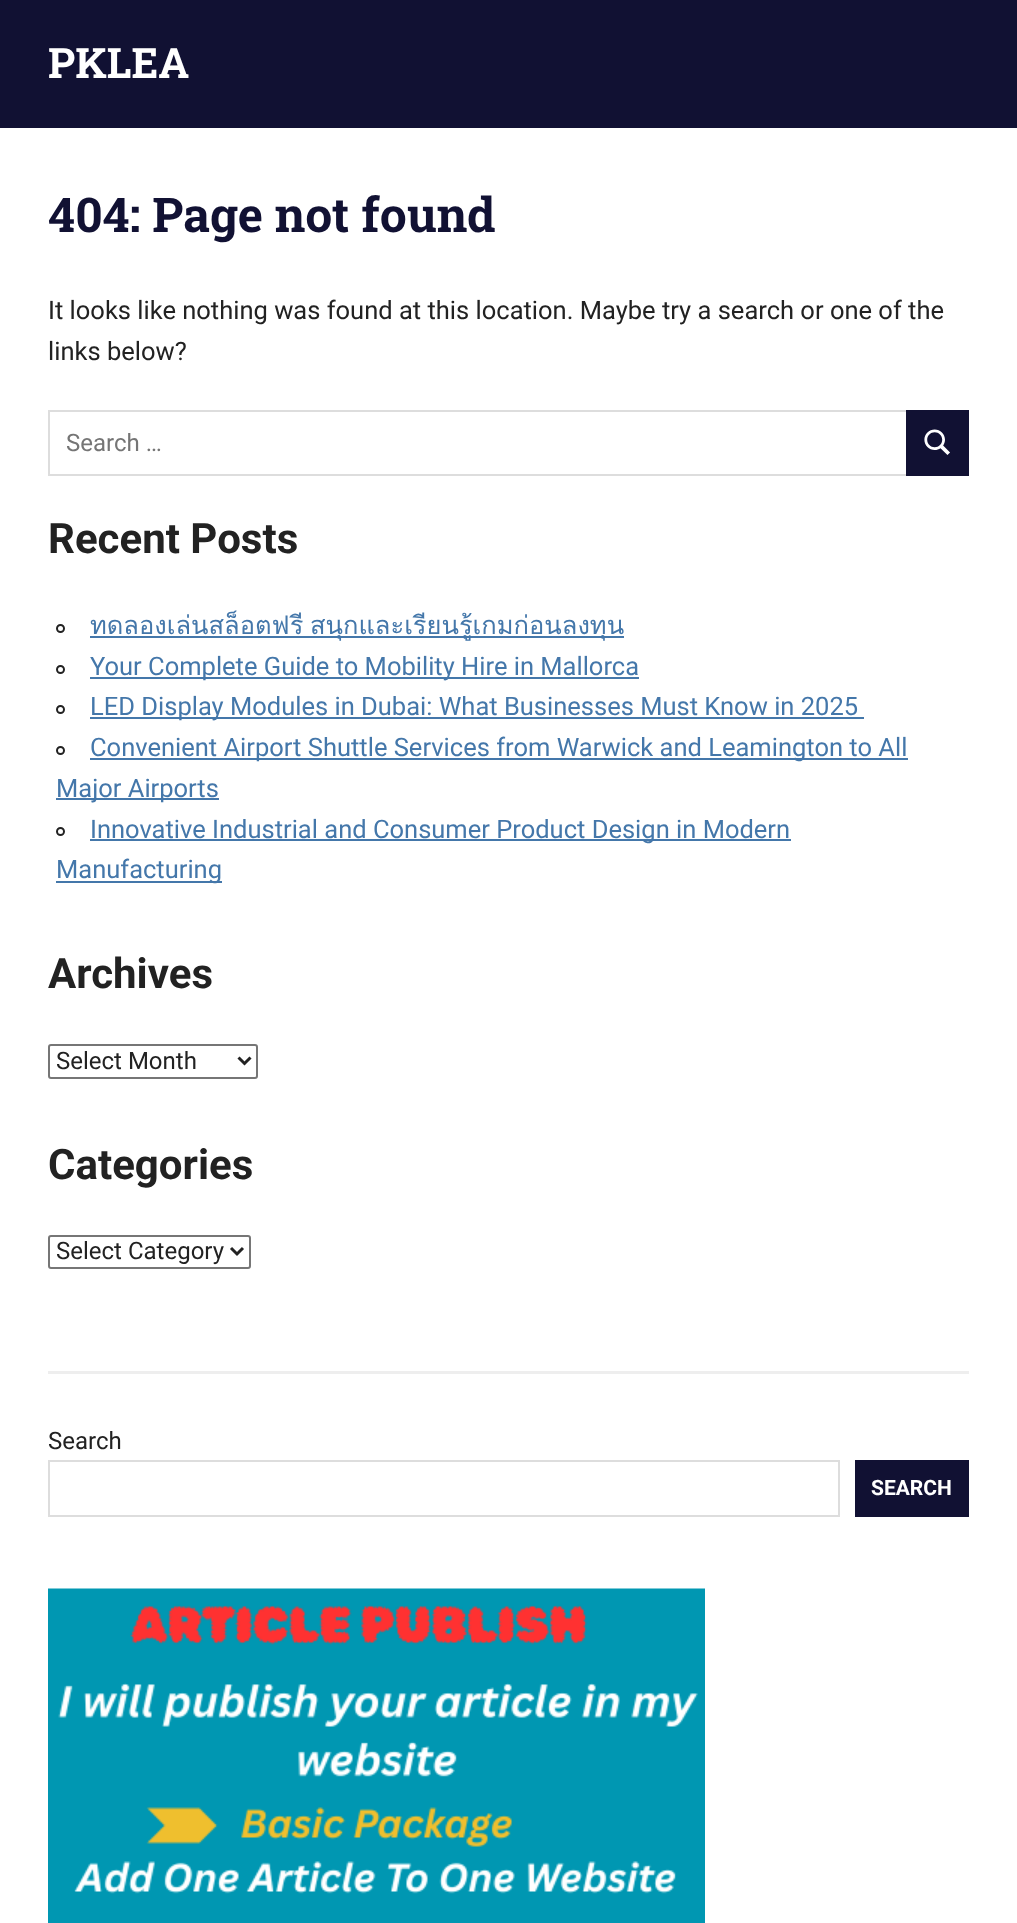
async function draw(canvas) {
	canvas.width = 1017;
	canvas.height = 1923;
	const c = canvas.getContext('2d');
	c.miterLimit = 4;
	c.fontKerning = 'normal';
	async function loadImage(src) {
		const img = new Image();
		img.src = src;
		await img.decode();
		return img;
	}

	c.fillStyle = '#fff';
	c.fillRect(0, 0, 1017, 1923);
	c.fillStyle = '#113';
	c.fillRect(0, 0, 1017, 128);
	c.font = 'bold 42px Roboto Slab';
	c.fillStyle = '#fff';
	c.fillText('PKLEA', 48, 78);
	c.font = 'bold 48px Roboto Slab';
	c.fillStyle = '#113';
	c.fillText('404: Page not found', 48, 232);
	c.font = '25.5px Roboto';
	c.fillStyle = '#222';
	c.fillText('It looks like nothing was found at this location. Maybe try a search or one of the', 48, 319);
	c.fillText('links below?', 48, 360);
	c.strokeStyle = '#ddd';
	c.lineWidth = 2;
	c.strokeRect(49, 411, 858, 64);
	c.font = '24px Roboto';
	c.fillStyle = '#757575';
	c.fillText('Search …', 66, 451);
	c.fillStyle = '#113';
	c.fillRect(906, 410, 63, 66);
	c.drawImage(await loadImage('img1.png'), 924, 429, 26, 26);
	c.font = 'bold 42px Roboto';
	c.fillStyle = '#222';
	c.fillText('Recent Posts', 48, 553);
	c.beginPath();
	c.arc(60.5, 628.5, 3.5, 0, 2 * Math.PI);
	c.strokeStyle = '#222';
	c.stroke();
	c.fillStyle = '#47a';
	c.fillRect(90, 636, 534, 2);
	c.wordSpacing = '-2px';
	c.font = '25.5px Loma';
	c.fillText('ทดลองเล่นสล็อตฟรี สนุกและเรียนรู้เกมก่อนลงทุน', 90, 634);
	c.beginPath();
	c.arc(60.5, 669.5, 3.5, 0, 2 * Math.PI);
	c.stroke();
	c.fillRect(90, 677, 549, 2);
	c.wordSpacing = '0px';
	c.font = '25.5px Roboto';
	c.fillText('Your Complete Guide to Mobility Hire in Mallorca', 90, 675);
	c.beginPath();
	c.arc(60.5, 709.5, 3.5, 0, 2 * Math.PI);
	c.stroke();
	c.fillRect(90, 717, 774, 2);
	c.fillText('LED Display Modules in Dubai: What Businesses Must Know in 2025', 90, 715);
	c.beginPath();
	c.arc(60.5, 750.5, 3.5, 0, 2 * Math.PI);
	c.stroke();
	c.fillRect(90, 758, 818, 2);
	c.fillText('Convenient Airport Shuttle Services from Warwick and Leamington to All', 90, 756);
	c.fillRect(56, 798, 163, 2);
	c.fillText('Major Airports', 56, 797);
	c.beginPath();
	c.arc(60.5, 831.5, 3.5, 0, 2 * Math.PI);
	c.stroke();
	c.fillRect(90, 839, 701, 2);
	c.fillText('Innovative Industrial and Consumer Product Design in Modern', 90, 838);
	c.fillRect(56, 881, 166, 2);
	c.fillText('Manufacturing', 56, 878);
	c.font = 'bold 42px Roboto';
	c.fillStyle = '#222';
	c.fillText('Archives', 48, 988);
	c.beginPath();
	c.roundRect(49, 1045, 208, 33, 2);
	c.strokeStyle = '#767676';
	c.stroke();
	c.beginPath();
	c.moveTo(238.5, 1057.5);
	c.lineTo(244.5, 1063.5);
	c.lineTo(250.5, 1057.5);
	c.strokeStyle = '#222';
	c.lineWidth = 3;
	c.stroke();
	c.font = '24px Roboto';
	c.fillText('Select Month', 56, 1069);
	c.font = 'bold 42px Roboto';
	c.fillText('Categories', 48, 1179);
	c.beginPath();
	c.roundRect(49, 1236, 201, 32, 2);
	c.strokeStyle = '#767676';
	c.lineWidth = 2;
	c.stroke();
	c.beginPath();
	c.moveTo(231, 1248);
	c.lineTo(237, 1254);
	c.lineTo(243, 1248);
	c.strokeStyle = '#222';
	c.lineWidth = 3;
	c.stroke();
	c.font = '24px Roboto';
	c.fillText('Select Category', 56, 1259);
	c.fillStyle = '#eee';
	c.fillRect(48, 1371, 921, 3);
	c.fillStyle = '#222';
	c.fillText('Search', 48, 1449);
	c.strokeStyle = '#ddd';
	c.lineWidth = 2;
	c.strokeRect(49, 1461, 790, 55);
	c.fillStyle = '#113';
	c.fillRect(855, 1460, 114, 57);
	c.font = 'bold 21px Roboto';
	c.fillStyle = '#fff';
	c.fillText('SEARCH', 871, 1495);
	c.drawImage(await loadImage('img2.png'), 48, 1588, 657, 335);
}

draw(document.querySelector('canvas'));
